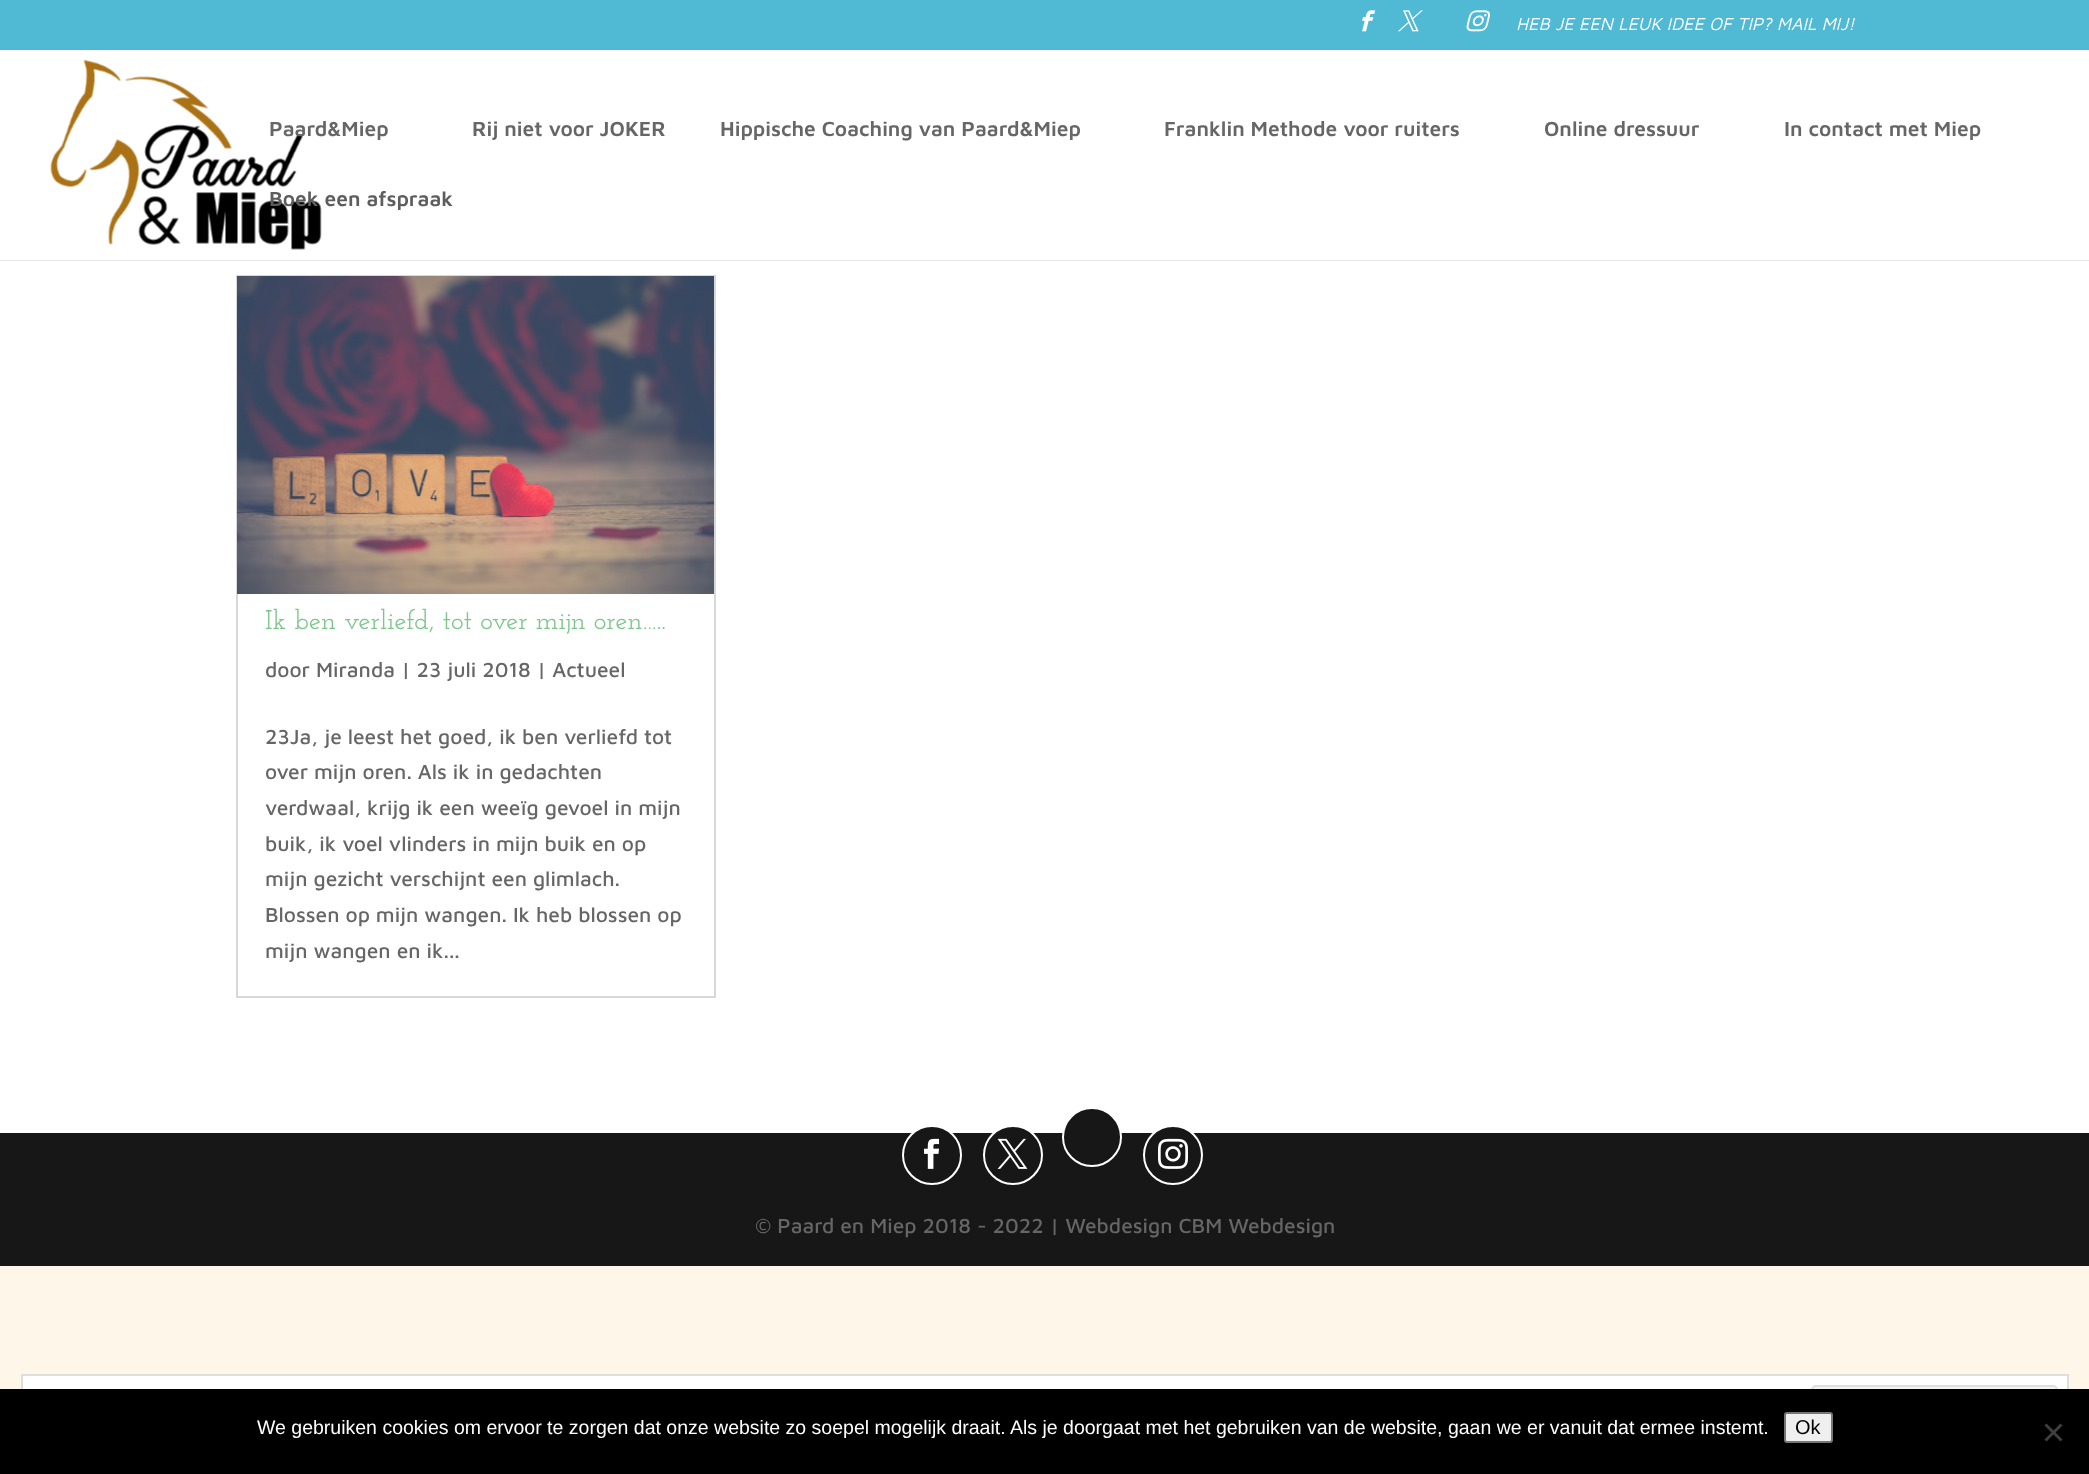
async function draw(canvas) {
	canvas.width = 2089;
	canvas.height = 1474;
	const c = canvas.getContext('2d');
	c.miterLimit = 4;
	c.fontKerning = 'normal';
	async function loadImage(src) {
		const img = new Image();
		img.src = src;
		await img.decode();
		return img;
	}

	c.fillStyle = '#fff6ea';
	c.fillRect(0, 0, 2089, 1474);
	c.fillStyle = '#50b9d3';
	c.fillRect(0, 0, 2089, 50);
	c.drawImage(await loadImage('img1.png'), 1362, 10, 14, 22);
	c.drawImage(await loadImage('img2.png'), 1397, 10, 26, 22);
	c.drawImage(await loadImage('img3.png'), 1466, 10, 24, 22);
	c.font = 'italic 18px Maven Pro';
	c.fillStyle = '#fff';
	c.fillText('HEB JE EEN LEUK IDEE OF TIP? MAIL MIJ!', 1516, 30);
	c.fillStyle = '#e6e6e6';
	c.beginPath();
	c.moveTo(0, 260);
	c.lineTo(0, 261);
	c.lineTo(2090, 261);
	c.lineTo(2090, 51);
	c.lineTo(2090, 260);
	c.closePath();
	c.fill();
	c.fillStyle = '#fff';
	c.fillRect(0, 50, 2089, 210);
	c.drawImage(await loadImage('img4.png'), 50, 59, 272, 191);
	c.font = '600 21px Maven Pro';
	c.fillStyle = '#666';
	for (const [text, x, y] of [
		['Paard&Miep', 269, 136],
		['Rij niet voor JOKER', 472, 136],
		['Hippische Coaching van Paard&Miep', 720, 136],
		['Franklin Methode voor ruiters', 1164, 136],
		['Online dressuur', 1544, 136],
		['In contact met Miep', 1784, 136],
	]) {
		c.fillText(text, x, y);
	}
	c.fillStyle = '#5d5d5d';
	c.fillText('Boek een afspraak', 269, 206);
	c.fillStyle = '#fff';
	c.fillRect(0, 261, 2089, 872);
	c.strokeStyle = '#d8d8d8';
	c.lineWidth = 2;
	c.strokeRect(237, 276, 478, 721);
	c.drawImage(await loadImage('img5.png'), 237, 276, 477, 318);
	c.font = '100 27px Josefin Slab';
	c.fillStyle = '#7cc68d';
	c.fillText('Ik ben verliefd, tot over mijn oren…..', 265, 629);
	c.font = '500 21px Maven Pro';
	c.fillStyle = '#666';
	for (const [text, x, y] of [
		['door Miranda | 23 juli 2018 | Actueel', 265, 677],
		['23Ja, je leest het goed, ik ben verliefd tot', 265, 744],
		['over mijn oren. Als ik in gedachten', 265, 779],
		['verdwaal, krijg ik een weeïg gevoel in mijn', 265, 815],
		['buik, ik voel vlinders in mijn buik en op', 265, 851],
		['mijn gezicht verschijnt een glimlach.', 265, 886],
		['Blossen op mijn wangen. Ik heb blossen op', 265, 922],
		['mijn wangen en ik...', 265, 958],
	]) {
		c.fillText(text, x, y);
	}
	c.fillStyle = '#171717';
	c.fillRect(0, 1133, 2089, 133);
	c.beginPath();
	c.arc(932, 1155, 29, 0, 2 * Math.PI);
	c.fill();
	c.strokeStyle = '#fff';
	c.stroke();
	c.drawImage(await loadImage('img6.png'), 924, 1138, 16, 31);
	c.beginPath();
	c.arc(1013, 1155, 29, 0, 2 * Math.PI);
	c.fill();
	c.stroke();
	c.drawImage(await loadImage('img7.png'), 997, 1138, 31, 31);
	c.beginPath();
	c.arc(1092, 1137, 29, 0, 2 * Math.PI);
	c.fill();
	c.stroke();
	c.beginPath();
	c.arc(1173, 1155, 29, 0, 2 * Math.PI);
	c.fill();
	c.stroke();
	c.drawImage(await loadImage('img8.png'), 1158, 1138, 30, 31);
	c.fillStyle = '#666';
	c.fillText('© Paard en Miep 2018 - 2022 | Webdesign CBM Webdesign', 755, 1233);
	c.fillStyle = '#fff';
	c.fillRect(23, 1376, 2044, 13);
	c.strokeStyle = '#dedede';
	c.strokeRect(22, 1375, 2046, 78);
	c.fillStyle = '#f3f3f3';
	c.beginPath();
	c.roundRect(1812, 1386, 245, 56, 4);
	c.fill();
	c.stroke();
	c.fillStyle = '#000';
	c.fillRect(0, 1389, 2089, 85);
	c.font = '19.5px Liberation Sans';
	c.fillStyle = '#fff';
	c.fillText('We gebruiken cookies om ervoor te zorgen dat onze website zo soepel mogelijk draait. Als je doorgaat met het gebruiken van de website, gaan we er vanuit dat ermee instemt.', 257, 1434);
	c.fillStyle = '#efefef';
	c.beginPath();
	c.roundRect(1785, 1413, 47, 29, 2);
	c.fill();
	c.strokeStyle = '#767676';
	c.stroke();
	c.font = '20px Liberation Sans';
	c.fillStyle = '#000';
	c.fillText('Ok', 1795, 1434);
	c.fillStyle = '#404040';
	c.beginPath();
	c.moveTo(2060.5, 1423.5);
	c.lineTo(2062.5, 1425.5);
	c.lineTo(2046.5, 1441.5);
	c.lineTo(2044.5, 1439.5);
	c.closePath();
	c.fill();
	c.beginPath();
	c.moveTo(2044.5, 1425.5);
	c.lineTo(2046.5, 1423.5);
	c.lineTo(2062.5, 1439.5);
	c.lineTo(2060.5, 1441.5);
	c.closePath();
	c.fill();
}

draw(document.querySelector('canvas'));
